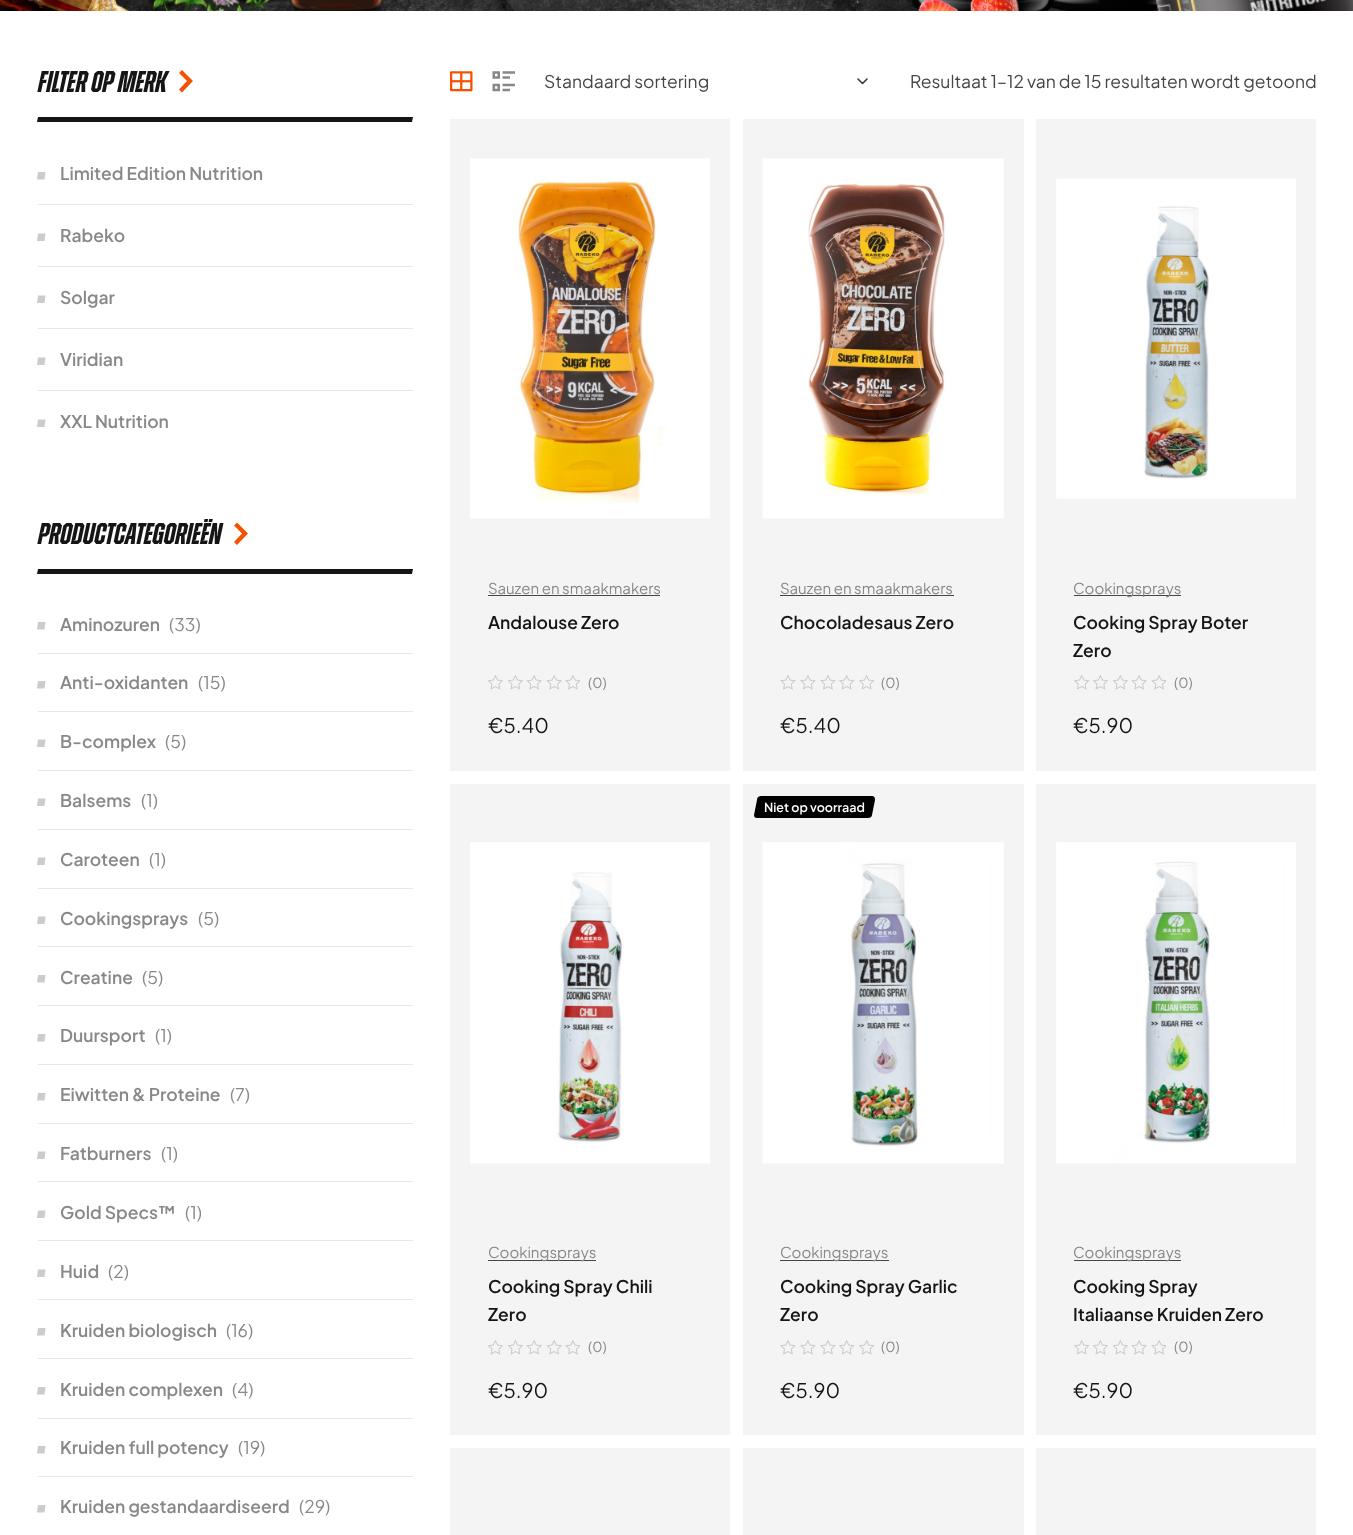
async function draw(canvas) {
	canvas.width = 1353;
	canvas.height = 1535;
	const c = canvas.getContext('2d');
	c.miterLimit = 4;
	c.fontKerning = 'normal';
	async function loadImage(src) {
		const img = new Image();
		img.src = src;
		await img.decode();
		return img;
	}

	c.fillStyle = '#fff';
	c.fillRect(0, 0, 1353, 1535);
	c.drawImage(await loadImage('img1.png'), 0, 0, 1353, 11);
	c.font = 'bold 30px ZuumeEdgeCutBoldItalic';
	c.fillStyle = '#151515';
	c.fillText('filter op merk', 38, 92);
	c.fillStyle = '#f65000';
	c.beginPath();
	c.moveTo(182, 92.5);
	c.lineTo(193, 81);
	c.lineTo(182, 70);
	c.lineTo(179, 73);
	c.lineTo(187, 81);
	c.lineTo(179, 89.5);
	c.closePath();
	c.fill();
	c.fillStyle = '#151515';
	c.beginPath();
	c.moveTo(38, 117);
	c.lineTo(413, 117);
	c.lineTo(412, 122);
	c.lineTo(37, 122);
	c.closePath();
	c.fill();
	c.fillStyle = '#e8e8e8';
	c.fillRect(38, 204, 375, 1);
	c.fillStyle = '#ccc';
	c.beginPath();
	c.moveTo(38, 172);
	c.lineTo(45.5, 172);
	c.lineTo(44.5, 179.5);
	c.lineTo(37, 179.5);
	c.closePath();
	c.fill();
	c.font = '600 17.5px Plus Jakarta Sans';
	c.fillStyle = '#888';
	c.fillText('Limited Edition Nutrition', 60, 180);
	c.fillStyle = '#e8e8e8';
	c.fillRect(38, 266, 375, 1);
	c.fillStyle = '#ccc';
	c.beginPath();
	c.moveTo(38, 233.5);
	c.lineTo(45.5, 233.5);
	c.lineTo(44.5, 241);
	c.lineTo(37, 241);
	c.closePath();
	c.fill();
	c.fillStyle = '#888';
	c.fillText('Rabeko', 60, 242);
	c.fillStyle = '#e8e8e8';
	c.fillRect(38, 328, 375, 1);
	c.fillStyle = '#ccc';
	c.beginPath();
	c.moveTo(38, 295.5);
	c.lineTo(45.5, 295.5);
	c.lineTo(44.5, 303);
	c.lineTo(37, 303);
	c.closePath();
	c.fill();
	c.fillStyle = '#888';
	c.fillText('Solgar', 60, 304);
	c.fillStyle = '#e8e8e8';
	c.fillRect(38, 390, 375, 1);
	c.fillStyle = '#ccc';
	c.beginPath();
	c.moveTo(38, 357.5);
	c.lineTo(45.5, 357.5);
	c.lineTo(44.5, 365);
	c.lineTo(37, 365);
	c.closePath();
	c.fill();
	c.fillStyle = '#888';
	c.fillText('Viridian', 60, 366);
	c.fillStyle = '#ccc';
	c.beginPath();
	c.moveTo(38, 419.5);
	c.lineTo(45.5, 419.5);
	c.lineTo(44.5, 427);
	c.lineTo(37, 427);
	c.closePath();
	c.fill();
	c.fillStyle = '#888';
	c.fillText('XXL Nutrition', 60, 428);
	c.font = 'bold 30px ZuumeEdgeCutBoldItalic';
	c.fillStyle = '#151515';
	c.fillText('Productcategorieën', 38, 544);
	c.fillStyle = '#f65000';
	c.beginPath();
	c.moveTo(237, 545);
	c.lineTo(248, 533.5);
	c.lineTo(237, 522.5);
	c.lineTo(234, 525.5);
	c.lineTo(242, 533.5);
	c.lineTo(234, 542);
	c.closePath();
	c.fill();
	c.fillStyle = '#151515';
	c.beginPath();
	c.moveTo(38, 569);
	c.lineTo(413, 569);
	c.lineTo(412, 574);
	c.lineTo(37, 574);
	c.closePath();
	c.fill();
	c.fillStyle = '#e8e8e8';
	c.fillRect(38, 653, 375, 1);
	c.fillStyle = '#ccc';
	c.beginPath();
	c.moveTo(38, 622);
	c.lineTo(45.5, 622);
	c.lineTo(44.5, 629.5);
	c.lineTo(37, 629.5);
	c.closePath();
	c.fill();
	c.font = '600 17.5px Plus Jakarta Sans';
	c.fillStyle = '#888';
	c.fillText('Aminozuren', 60, 631);
	c.font = '17.5px Plus Jakarta Sans';
	c.fillText('(33)', 169, 631);
	c.fillStyle = '#e8e8e8';
	c.fillRect(38, 711, 375, 1);
	c.fillStyle = '#ccc';
	c.beginPath();
	c.moveTo(38, 681);
	c.lineTo(45.5, 681);
	c.lineTo(44.5, 688.5);
	c.lineTo(37, 688.5);
	c.closePath();
	c.fill();
	c.font = '600 17.5px Plus Jakarta Sans';
	c.fillStyle = '#888';
	c.fillText('Anti-oxidanten', 60, 689);
	c.font = '17.5px Plus Jakarta Sans';
	c.fillText('(15)', 198, 689);
	c.fillStyle = '#e8e8e8';
	c.fillRect(38, 770, 375, 1);
	c.fillStyle = '#ccc';
	c.beginPath();
	c.moveTo(38, 739.5);
	c.lineTo(45.5, 739.5);
	c.lineTo(44.5, 747);
	c.lineTo(37, 747);
	c.closePath();
	c.fill();
	c.font = '600 17.5px Plus Jakarta Sans';
	c.fillStyle = '#888';
	c.fillText('B-complex', 60, 748);
	c.font = '17.5px Plus Jakarta Sans';
	c.fillText('(5)', 165, 748);
	c.fillStyle = '#e8e8e8';
	c.fillRect(38, 829, 375, 1);
	c.fillStyle = '#ccc';
	c.beginPath();
	c.moveTo(38, 798.5);
	c.lineTo(45.5, 798.5);
	c.lineTo(44.5, 806);
	c.lineTo(37, 806);
	c.closePath();
	c.fill();
	c.font = '600 17.5px Plus Jakarta Sans';
	c.fillStyle = '#888';
	c.fillText('Balsems', 60, 807);
	c.font = '17.5px Plus Jakarta Sans';
	c.fillText('(1)', 141, 807);
	c.fillStyle = '#e8e8e8';
	c.fillRect(38, 888, 375, 1);
	c.fillStyle = '#ccc';
	c.beginPath();
	c.moveTo(38, 857.5);
	c.lineTo(45.5, 857.5);
	c.lineTo(44.5, 865);
	c.lineTo(37, 865);
	c.closePath();
	c.fill();
	c.font = '600 17.5px Plus Jakarta Sans';
	c.fillStyle = '#888';
	c.fillText('Caroteen', 60, 866);
	c.font = '17.5px Plus Jakarta Sans';
	c.fillText('(1)', 149, 866);
	c.fillStyle = '#e8e8e8';
	c.fillRect(38, 946, 375, 1);
	c.fillStyle = '#ccc';
	c.beginPath();
	c.moveTo(38, 916.5);
	c.lineTo(45.5, 916.5);
	c.lineTo(44.5, 924);
	c.lineTo(37, 924);
	c.closePath();
	c.fill();
	c.font = '600 17.5px Plus Jakarta Sans';
	c.fillStyle = '#888';
	c.fillText('Cookingsprays', 60, 925);
	c.font = '17.5px Plus Jakarta Sans';
	c.fillText('(5)', 198, 925);
	c.fillStyle = '#e8e8e8';
	c.fillRect(38, 1005, 375, 1);
	c.fillStyle = '#ccc';
	c.beginPath();
	c.moveTo(38, 975);
	c.lineTo(45.5, 975);
	c.lineTo(44.5, 982.5);
	c.lineTo(37, 982.5);
	c.closePath();
	c.fill();
	c.font = '600 17.5px Plus Jakarta Sans';
	c.fillStyle = '#888';
	c.fillText('Creatine', 60, 984);
	c.font = '17.5px Plus Jakarta Sans';
	c.fillText('(5)', 142, 984);
	c.fillStyle = '#e8e8e8';
	c.fillRect(38, 1064, 375, 1);
	c.fillStyle = '#ccc';
	c.beginPath();
	c.moveTo(38, 1034);
	c.lineTo(45.5, 1034);
	c.lineTo(44.5, 1041.5);
	c.lineTo(37, 1041.5);
	c.closePath();
	c.fill();
	c.font = '600 17.5px Plus Jakarta Sans';
	c.fillStyle = '#888';
	c.fillText('Duursport', 60, 1042);
	c.font = '17.5px Plus Jakarta Sans';
	c.fillText('(1)', 155, 1042);
	c.fillStyle = '#e8e8e8';
	c.fillRect(38, 1123, 375, 1);
	c.fillStyle = '#ccc';
	c.beginPath();
	c.moveTo(38, 1093);
	c.lineTo(45.5, 1093);
	c.lineTo(44.5, 1100.5);
	c.lineTo(37, 1100.5);
	c.closePath();
	c.fill();
	c.font = '600 17.5px Plus Jakarta Sans';
	c.fillStyle = '#888';
	c.fillText('Eiwitten & Proteine', 60, 1101);
	c.font = '17.5px Plus Jakarta Sans';
	c.fillText('(7)', 230, 1101);
	c.fillStyle = '#e8e8e8';
	c.fillRect(38, 1181, 375, 1);
	c.fillStyle = '#ccc';
	c.beginPath();
	c.moveTo(38, 1151.5);
	c.lineTo(45.5, 1151.5);
	c.lineTo(44.5, 1159);
	c.lineTo(37, 1159);
	c.closePath();
	c.fill();
	c.font = '600 17.5px Plus Jakarta Sans';
	c.fillStyle = '#888';
	c.fillText('Fatburners', 60, 1160);
	c.font = '17.5px Plus Jakarta Sans';
	c.fillText('(1)', 161, 1160);
	c.fillStyle = '#e8e8e8';
	c.fillRect(38, 1240, 375, 1);
	c.fillStyle = '#ccc';
	c.beginPath();
	c.moveTo(38, 1210.5);
	c.lineTo(45.5, 1210.5);
	c.lineTo(44.5, 1218);
	c.lineTo(37, 1218);
	c.closePath();
	c.fill();
	c.font = '600 17.5px Plus Jakarta Sans';
	c.fillStyle = '#888';
	c.fillText('Gold Specs™', 60, 1219);
	c.font = '17.5px Plus Jakarta Sans';
	c.fillText('(1)', 185, 1219);
	c.fillStyle = '#e8e8e8';
	c.fillRect(38, 1299, 375, 1);
	c.fillStyle = '#ccc';
	c.beginPath();
	c.moveTo(38, 1269.5);
	c.lineTo(45.5, 1269.5);
	c.lineTo(44.5, 1277);
	c.lineTo(37, 1277);
	c.closePath();
	c.fill();
	c.font = '600 17.5px Plus Jakarta Sans';
	c.fillStyle = '#888';
	c.fillText('Huid', 60, 1278);
	c.font = '17.5px Plus Jakarta Sans';
	c.fillText('(2)', 108, 1278);
	c.fillStyle = '#e8e8e8';
	c.fillRect(38, 1358, 375, 1);
	c.fillStyle = '#ccc';
	c.beginPath();
	c.moveTo(38, 1328);
	c.lineTo(45.5, 1328);
	c.lineTo(44.5, 1335.5);
	c.lineTo(37, 1335.5);
	c.closePath();
	c.fill();
	c.font = '600 17.5px Plus Jakarta Sans';
	c.fillStyle = '#888';
	c.fillText('Kruiden biologisch', 60, 1337);
	c.font = '17.5px Plus Jakarta Sans';
	c.fillText('(16)', 226, 1337);
	c.fillStyle = '#e8e8e8';
	c.fillRect(38, 1418, 375, 1);
	c.fillStyle = '#ccc';
	c.beginPath();
	c.moveTo(38, 1387);
	c.lineTo(45.5, 1387);
	c.lineTo(44.5, 1394.5);
	c.lineTo(37, 1394.5);
	c.closePath();
	c.fill();
	c.font = '600 17.5px Plus Jakarta Sans';
	c.fillStyle = '#888';
	c.fillText('Kruiden complexen', 60, 1396);
	c.font = '17.5px Plus Jakarta Sans';
	c.fillText('(4)', 232, 1396);
	c.fillStyle = '#e8e8e8';
	c.fillRect(38, 1476, 375, 1);
	c.fillStyle = '#ccc';
	c.beginPath();
	c.moveTo(38, 1446);
	c.lineTo(45.5, 1446);
	c.lineTo(44.5, 1453.5);
	c.lineTo(37, 1453.5);
	c.closePath();
	c.fill();
	c.font = '600 17.5px Plus Jakarta Sans';
	c.fillStyle = '#888';
	c.fillText('Kruiden full potency', 60, 1454);
	c.font = '17.5px Plus Jakarta Sans';
	c.fillText('(19)', 238, 1454);
	c.fillStyle = '#ccc';
	c.beginPath();
	c.moveTo(38, 1505);
	c.lineTo(45.5, 1505);
	c.lineTo(44.5, 1512.5);
	c.lineTo(37, 1512.5);
	c.closePath();
	c.fill();
	c.font = '600 17.5px Plus Jakarta Sans';
	c.fillStyle = '#888';
	c.fillText('Kruiden gestandaardiseerd', 60, 1513);
	c.font = '17.5px Plus Jakarta Sans';
	c.fillText('(29)', 299, 1513);
	c.drawImage(await loadImage('img2.png'), 450, 71, 23, 21);
	c.drawImage(await loadImage('img3.png'), 492, 71, 23, 21);
	c.beginPath();
	c.moveTo(858, 79);
	c.lineTo(862.5, 83.5);
	c.lineTo(867, 79);
	c.strokeStyle = '#343a40';
	c.lineWidth = 1.6;
	c.lineCap = 'round';
	c.lineJoin = 'round';
	c.stroke();
	c.fillStyle = '#464646';
	c.fillText('Standaard sortering', 544, 88);
	c.fillText('Resultaat 1–12 van de 15 resultaten wordt getoond', 910, 88);
	c.fillStyle = '#f4f4f4';
	c.fillRect(450, 119, 280, 652);
	c.drawImage(await loadImage('img4.png'), 470, 158, 240, 361);
	c.font = '15px Plus Jakarta Sans';
	c.fillStyle = '#888';
	c.fillText('Sauzen en smaakmakers', 488, 594);
	c.fillStyle = '#464646';
	c.fillRect(488, 595, 172, 1);
	c.font = '600 17.5px Plus Jakarta Sans';
	c.fillStyle = '#151515';
	c.fillText('Andalouse Zero', 488, 629);
	c.drawImage(await loadImage('img5.png'), 488, 675, 15, 15);
	c.drawImage(await loadImage('img6.png'), 507, 675, 16, 15);
	c.drawImage(await loadImage('img7.png'), 526, 675, 16, 15);
	c.drawImage(await loadImage('img7.png'), 546, 675, 16, 15);
	c.drawImage(await loadImage('img8.png'), 565, 675, 15, 15);
	c.font = '14px Plus Jakarta Sans';
	c.fillStyle = '#888';
	c.fillText('(0)', 588, 688);
	c.font = '20px Plus Jakarta Sans';
	c.fillStyle = '#151515';
	c.fillText('€5.40', 488, 733);
	c.fillStyle = '#f4f4f4';
	c.fillRect(743, 119, 281, 652);
	c.drawImage(await loadImage('img9.png'), 762, 158, 242, 361);
	c.font = '15px Plus Jakarta Sans';
	c.fillStyle = '#888';
	c.fillText('Sauzen en smaakmakers', 780, 594);
	c.fillStyle = '#464646';
	c.fillRect(780, 595, 174, 1);
	c.font = '600 17.5px Plus Jakarta Sans';
	c.fillStyle = '#151515';
	c.fillText('Chocoladesaus Zero', 780, 629);
	c.drawImage(await loadImage('img10.png'), 780, 675, 16, 15);
	c.drawImage(await loadImage('img10.png'), 800, 675, 16, 15);
	c.drawImage(await loadImage('img10.png'), 820, 675, 16, 15);
	c.drawImage(await loadImage('img11.png'), 839, 675, 16, 15);
	c.drawImage(await loadImage('img12.png'), 859, 675, 15, 15);
	c.font = '14px Plus Jakarta Sans';
	c.fillStyle = '#888';
	c.fillText('(0)', 881, 688);
	c.font = '20px Plus Jakarta Sans';
	c.fillStyle = '#151515';
	c.fillText('€5.40', 780, 733);
	c.fillStyle = '#f4f4f4';
	c.fillRect(1036, 119, 280, 652);
	c.drawImage(await loadImage('img13.png'), 1056, 178, 240, 321);
	c.fillStyle = '#464646';
	c.fillRect(1074, 595, 107, 1);
	c.font = '15px Plus Jakarta Sans';
	c.fillStyle = '#888';
	c.fillText('Cookingsprays', 1073, 594);
	c.font = '600 17.5px Plus Jakarta Sans';
	c.fillStyle = '#151515';
	c.fillText('Cooking Spray Boter', 1073, 629);
	c.fillText('Zero', 1073, 657);
	c.drawImage(await loadImage('img11.png'), 1074, 675, 16, 15);
	c.drawImage(await loadImage('img6.png'), 1092, 675, 16, 15);
	c.drawImage(await loadImage('img6.png'), 1112, 675, 16, 15);
	c.drawImage(await loadImage('img7.png'), 1131, 675, 16, 15);
	c.drawImage(await loadImage('img14.png'), 1151, 675, 15, 15);
	c.font = '14px Plus Jakarta Sans';
	c.fillStyle = '#888';
	c.fillText('(0)', 1174, 688);
	c.font = '20px Plus Jakarta Sans';
	c.fillStyle = '#151515';
	c.fillText('€5.90', 1073, 733);
	c.fillStyle = '#f4f4f4';
	c.fillRect(450, 784, 280, 651);
	c.drawImage(await loadImage('img15.png'), 470, 842, 240, 322);
	c.fillStyle = '#464646';
	c.fillRect(488, 1260, 108, 1);
	c.font = '15px Plus Jakarta Sans';
	c.fillStyle = '#888';
	c.fillText('Cookingsprays', 488, 1258);
	c.font = '600 17.5px Plus Jakarta Sans';
	c.fillStyle = '#151515';
	c.fillText('Cooking Spray Chili', 488, 1293);
	c.fillText('Zero', 488, 1321);
	c.drawImage(await loadImage('img5.png'), 488, 1340, 15, 15);
	c.drawImage(await loadImage('img6.png'), 507, 1340, 16, 15);
	c.drawImage(await loadImage('img7.png'), 526, 1340, 16, 15);
	c.drawImage(await loadImage('img7.png'), 546, 1340, 16, 15);
	c.drawImage(await loadImage('img8.png'), 565, 1340, 15, 15);
	c.font = '14px Plus Jakarta Sans';
	c.fillStyle = '#888';
	c.fillText('(0)', 588, 1352);
	c.font = '20px Plus Jakarta Sans';
	c.fillStyle = '#151515';
	c.fillText('€5.90', 488, 1398);
	c.fillStyle = '#f4f4f4';
	c.fillRect(743, 784, 281, 651);
	c.fillStyle = '#000';
	c.beginPath();
	c.moveTo(761, 796);
	c.lineTo(872, 796);
	c.bezierCurveTo(874, 796, 875, 797, 875, 800);
	c.lineTo(872, 815);
	c.bezierCurveTo(872, 817, 870, 818, 868, 818);
	c.lineTo(757, 818);
	c.bezierCurveTo(755, 818, 754, 817, 754, 815);
	c.lineTo(757, 800);
	c.bezierCurveTo(757, 797, 759, 796, 761, 796);
	c.closePath();
	c.fill();
	c.font = '600 12.5px Plus Jakarta Sans';
	c.fillStyle = '#fff';
	c.fillText('Niet op voorraad', 764, 812);
	c.drawImage(await loadImage('img16.png'), 762, 842, 242, 322);
	c.fillStyle = '#464646';
	c.fillRect(780, 1260, 109, 1);
	c.font = '15px Plus Jakarta Sans';
	c.fillStyle = '#888';
	c.fillText('Cookingsprays', 780, 1258);
	c.font = '600 17.5px Plus Jakarta Sans';
	c.fillStyle = '#151515';
	c.fillText('Cooking Spray Garlic', 780, 1293);
	c.fillText('Zero', 780, 1321);
	c.drawImage(await loadImage('img10.png'), 780, 1340, 16, 15);
	c.drawImage(await loadImage('img10.png'), 800, 1340, 16, 15);
	c.drawImage(await loadImage('img10.png'), 820, 1340, 16, 15);
	c.drawImage(await loadImage('img11.png'), 839, 1340, 16, 15);
	c.drawImage(await loadImage('img12.png'), 859, 1340, 15, 15);
	c.font = '14px Plus Jakarta Sans';
	c.fillStyle = '#888';
	c.fillText('(0)', 881, 1352);
	c.font = '20px Plus Jakarta Sans';
	c.fillStyle = '#151515';
	c.fillText('€5.90', 780, 1398);
	c.fillStyle = '#f4f4f4';
	c.fillRect(1036, 784, 280, 651);
	c.drawImage(await loadImage('img17.png'), 1056, 842, 240, 322);
	c.fillStyle = '#464646';
	c.fillRect(1074, 1260, 107, 1);
	c.font = '15px Plus Jakarta Sans';
	c.fillStyle = '#888';
	c.fillText('Cookingsprays', 1073, 1258);
	c.font = '600 17.5px Plus Jakarta Sans';
	c.fillStyle = '#151515';
	c.fillText('Cooking Spray', 1073, 1293);
	c.fillText('Italiaanse Kruiden Zero', 1073, 1321);
	c.drawImage(await loadImage('img11.png'), 1074, 1340, 16, 15);
	c.drawImage(await loadImage('img6.png'), 1092, 1340, 16, 15);
	c.drawImage(await loadImage('img6.png'), 1112, 1340, 16, 15);
	c.drawImage(await loadImage('img7.png'), 1131, 1340, 16, 15);
	c.drawImage(await loadImage('img14.png'), 1151, 1340, 15, 15);
	c.font = '14px Plus Jakarta Sans';
	c.fillStyle = '#888';
	c.fillText('(0)', 1174, 1352);
	c.font = '20px Plus Jakarta Sans';
	c.fillStyle = '#151515';
	c.fillText('€5.90', 1073, 1398);
	for (const [x, y, w, h, color] of [
		[450, 1448, 280, 87, '#f4f4f4'],
		[743, 1448, 281, 87, '#f4f4f4'],
		[1036, 1448, 280, 87, '#f4f4f4'],
	]) {
		c.fillStyle = color;
		c.fillRect(x, y, w, h);
	}
}

draw(document.querySelector('canvas'));
